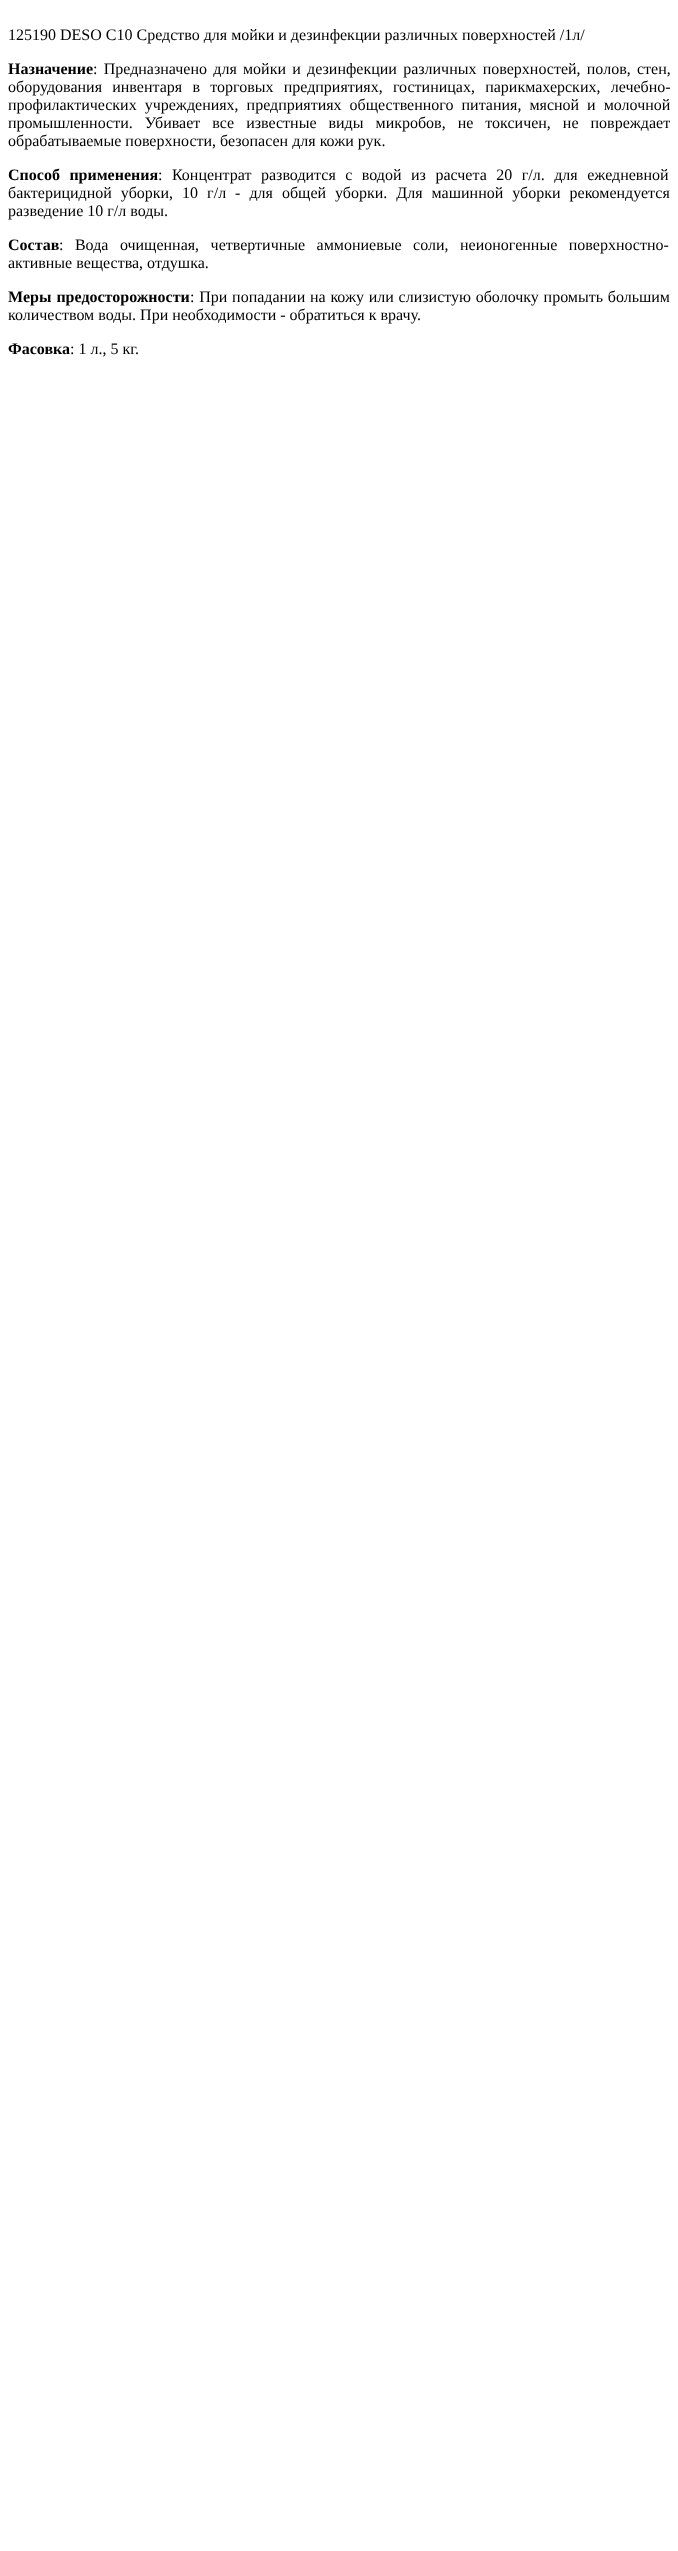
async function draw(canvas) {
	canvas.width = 678;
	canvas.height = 2551;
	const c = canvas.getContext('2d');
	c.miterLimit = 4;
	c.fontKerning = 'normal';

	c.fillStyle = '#fff';
	c.fillRect(0, 0, 678, 2551);
	c.font = '16px Liberation Serif';
	c.fillStyle = '#000';
	c.fillText('125190 DESO C10 Средство для мойки и дезинфекции различных поверхностей /1л/', 8, 40);
	c.font = 'bold 16px Liberation Serif';
	c.fillText('Назначение', 8, 74);
	c.wordSpacing = '2.25px';
	c.font = '16px Liberation Serif';
	c.fillText(': Предназначено для мойки и дезинфекции различных поверхностей, полов, стен,', 93, 74);
	c.wordSpacing = '6.25px';
	c.fillText('оборудования инвентаря в торговых предприятиях, гостиницах, парикмахерских, лечебно-', 8, 92);
	c.wordSpacing = '4px';
	c.fillText('профилактических учреждениях, предприятиях общественного питания, мясной и молочной', 8, 110);
	c.wordSpacing = '8px';
	c.fillText('промышленности. Убивает все известные виды микробов, не токсичен, не повреждает', 8, 128);
	c.wordSpacing = '0px';
	c.fillText('обрабатываемые поверхности, безопасен для кожи рук.', 8, 146);
	c.wordSpacing = '5.5px';
	c.font = 'bold 16px Liberation Serif';
	c.fillText('Способ применения', 8, 180);
	c.font = '16px Liberation Serif';
	c.fillText(': Концентрат разводится с водой из расчета 20 г/л. для ежедневной', 158, 180);
	c.wordSpacing = '5px';
	c.fillText('бактерицидной уборки, 10 г/л - для общей уборки. Для машинной уборки рекомендуется', 8, 198);
	c.wordSpacing = '0px';
	c.fillText('разведение 10 г/л воды.', 8, 216);
	c.font = 'bold 16px Liberation Serif';
	c.fillText('Состав', 8, 250);
	c.wordSpacing = '7.5px';
	c.font = '16px Liberation Serif';
	c.fillText(': Вода очищенная, четвертичные аммониевые соли, неионогенные поверхностно-', 59, 250);
	c.wordSpacing = '0px';
	c.fillText('активные вещества, отдушка.', 8, 268);
	c.wordSpacing = '1px';
	c.font = 'bold 16px Liberation Serif';
	c.fillText('Меры предосторожности', 8, 302);
	c.wordSpacing = '0.75px';
	c.font = '16px Liberation Serif';
	c.fillText(': При попадании на кожу или слизистую оболочку промыть большим', 190, 302);
	c.wordSpacing = '0px';
	c.fillText('количеством воды. При необходимости - обратиться к врачу.', 8, 320);
	c.font = 'bold 16px Liberation Serif';
	c.fillText('Фасовка', 8, 354);
	c.font = '16px Liberation Serif';
	c.fillText(': 1 л., 5 кг.', 70, 354);
}

draw(document.querySelector('canvas'));
